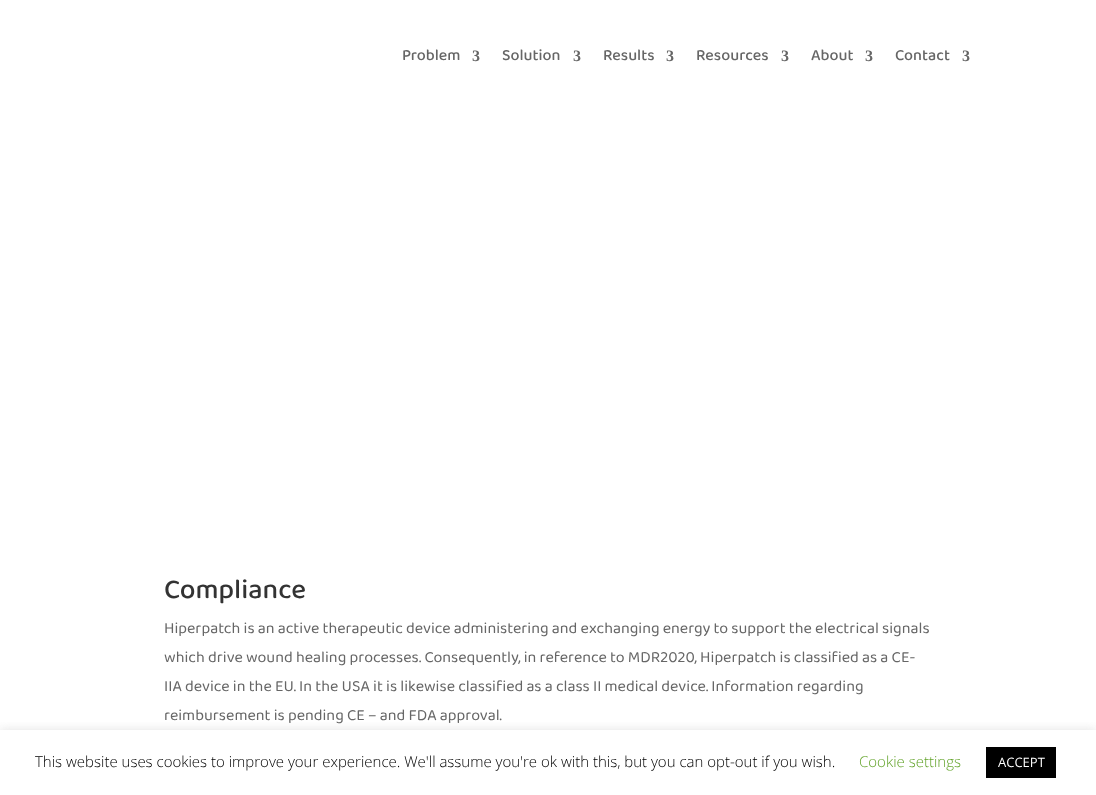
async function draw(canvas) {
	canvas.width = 1096;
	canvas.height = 795;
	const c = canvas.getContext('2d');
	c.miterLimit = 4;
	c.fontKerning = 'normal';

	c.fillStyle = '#fff';
	c.fillRect(0, 0, 1096, 795);
	c.font = '500 16px "Baloo 2"';
	c.fillStyle = '#666';
	c.fillText('Problem', 402, 60);
	c.font = 'bold 16px Liberation Serif';
	c.fillText('3', 472, 61);
	c.font = '500 16px "Baloo 2"';
	c.fillText('Solution', 502, 60);
	c.font = 'bold 16px Liberation Serif';
	c.fillText('3', 573, 61);
	c.font = '500 16px "Baloo 2"';
	c.fillText('Results', 603, 60);
	c.font = 'bold 16px Liberation Serif';
	c.fillText('3', 666, 61);
	c.font = '500 16px "Baloo 2"';
	c.fillText('Resources', 696, 60);
	c.font = 'bold 16px Liberation Serif';
	c.fillText('3', 781, 61);
	c.font = '500 16px "Baloo 2"';
	c.fillText('About', 811, 60);
	c.font = 'bold 16px Liberation Serif';
	c.fillText('3', 865, 61);
	c.font = '500 16px "Baloo 2"';
	c.fillText('Contact', 895, 60);
	c.font = 'bold 16px Liberation Serif';
	c.fillText('3', 962, 61);
	c.font = '500 28px "Baloo 2"';
	c.fillStyle = '#333';
	c.fillText('Compliance', 164, 598);
	c.font = '16px "Baloo 2"';
	c.fillStyle = '#666';
	for (const [text, x, y] of [
		['Hiperpatch is an active therapeutic device administering and exchanging energy to support the electrical signals', 164, 633],
		['which drive wound healing processes. Consequently, in reference to MDR2020, Hiperpatch is classified as a CE-', 164, 662],
		['IIA device in the EU. In the USA it is likewise classified as a class II medical device. Information regarding', 164, 691],
		['reimbursement is pending CE – and FDA approval.', 164, 720],
	]) {
		c.fillText(text, x, y);
	}
	c.save();
	c.beginPath();
	c.rect(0, 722, 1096, 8);
	c.clip();
	c.fillStyle = '#acabab4d';
	c.filter = 'blur(5px)';
	c.beginPath();
	c.rect(0, 729, 1096, 65);
	c.fill();
	c.filter = 'none';
	c.restore();
	c.font = '300 15px Open Sans';
	c.fillStyle = '#000';
	c.fillText('This website uses cookies to improve your experience. We\'ll assume you\'re ok with this, but you can opt-out if you wish.', 35, 767);
	c.fillStyle = '#62a329';
	c.fillText('Cookie settings', 859, 767);
	c.fillStyle = '#000';
	c.fillRect(986, 747, 70, 31);
	c.font = '13px Open Sans';
	c.fillStyle = '#fff';
	c.fillText('ACCEPT', 998, 767);
}

draw(document.querySelector('canvas'));
